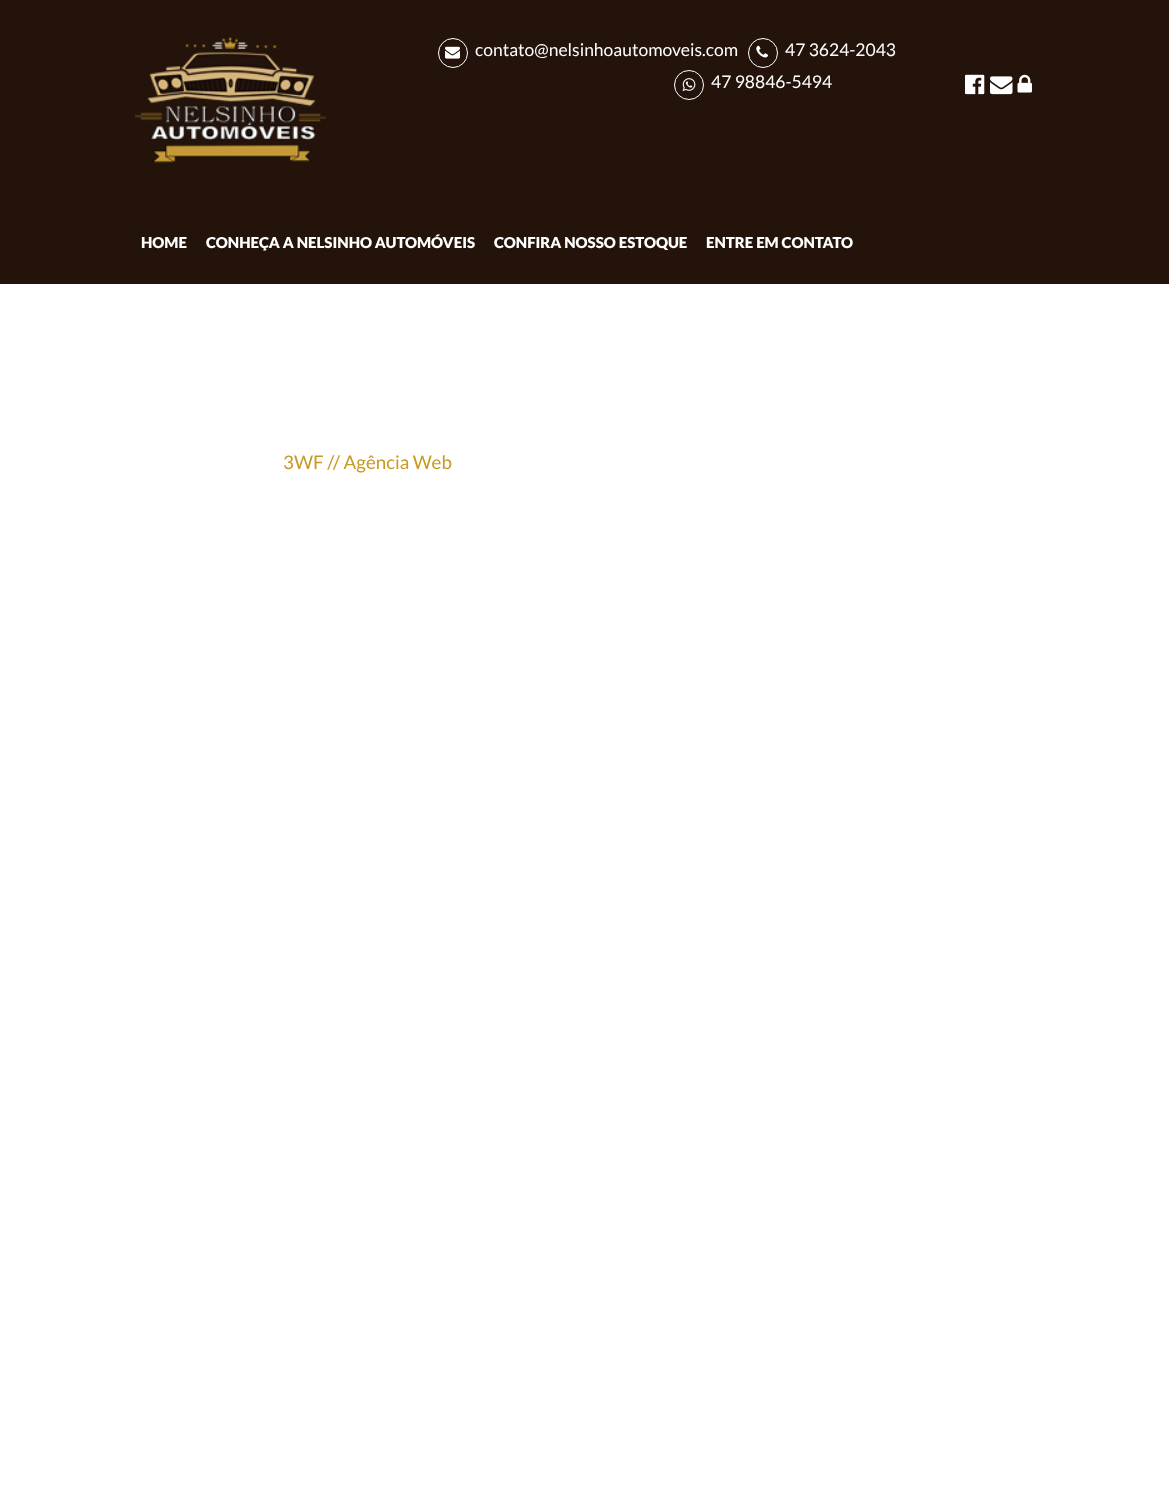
async function draw(canvas) {
	canvas.width = 1169;
	canvas.height = 1493;
	const c = canvas.getContext('2d');
	c.miterLimit = 4;
	c.fontKerning = 'normal';
	async function loadImage(src) {
		const img = new Image();
		img.src = src;
		await img.decode();
		return img;
	}

	c.fillStyle = '#fff';
	c.fillRect(0, 0, 1169, 1493);
	c.fillStyle = '#23130b';
	c.fillRect(0, 0, 1169, 284);
	c.drawImage(await loadImage('img1.png'), 135, 37, 192, 126);
	c.beginPath();
	c.arc(453, 53, 14.5, 0, 2 * Math.PI);
	c.strokeStyle = '#fff';
	c.stroke();
	c.drawImage(await loadImage('img2.png'), 445, 46, 15, 13);
	c.font = '17.5px Lato';
	c.fillStyle = '#fff';
	c.fillText('contato@nelsinhoautomoveis.com', 475, 56);
	c.beginPath();
	c.arc(763, 53, 14.5, 0, 2 * Math.PI);
	c.stroke();
	c.drawImage(await loadImage('img3.png'), 756, 45, 12, 13);
	c.fillText('47 3624-2043', 785, 56);
	c.beginPath();
	c.arc(689, 85, 14.5, 0, 2 * Math.PI);
	c.stroke();
	c.drawImage(await loadImage('img4.png'), 682, 78, 14, 13);
	c.fillText('47 98846-5494', 711, 88);
	c.drawImage(await loadImage('img5.png'), 965, 74, 20, 21);
	c.drawImage(await loadImage('img6.png'), 990, 76, 23, 19);
	c.drawImage(await loadImage('img7.png'), 1017, 74, 15, 19);
	c.font = '900 15px Lato';
	for (const [text, x, y] of [
		['HOME', 141, 248],
		['CONHEÇA A NELSINHO AUTOMÓVEIS', 206, 248],
		['CONFIRA NOSSO ESTOQUE', 494, 248],
		['ENTRE EM CONTATO', 706, 248],
	]) {
		c.fillText(text, x, y);
	}
	c.font = '18.75px Lato';
	c.fillStyle = '#c89a22';
	c.fillText('3WF // Agência Web', 283, 469);
}

draw(document.querySelector('canvas'));
